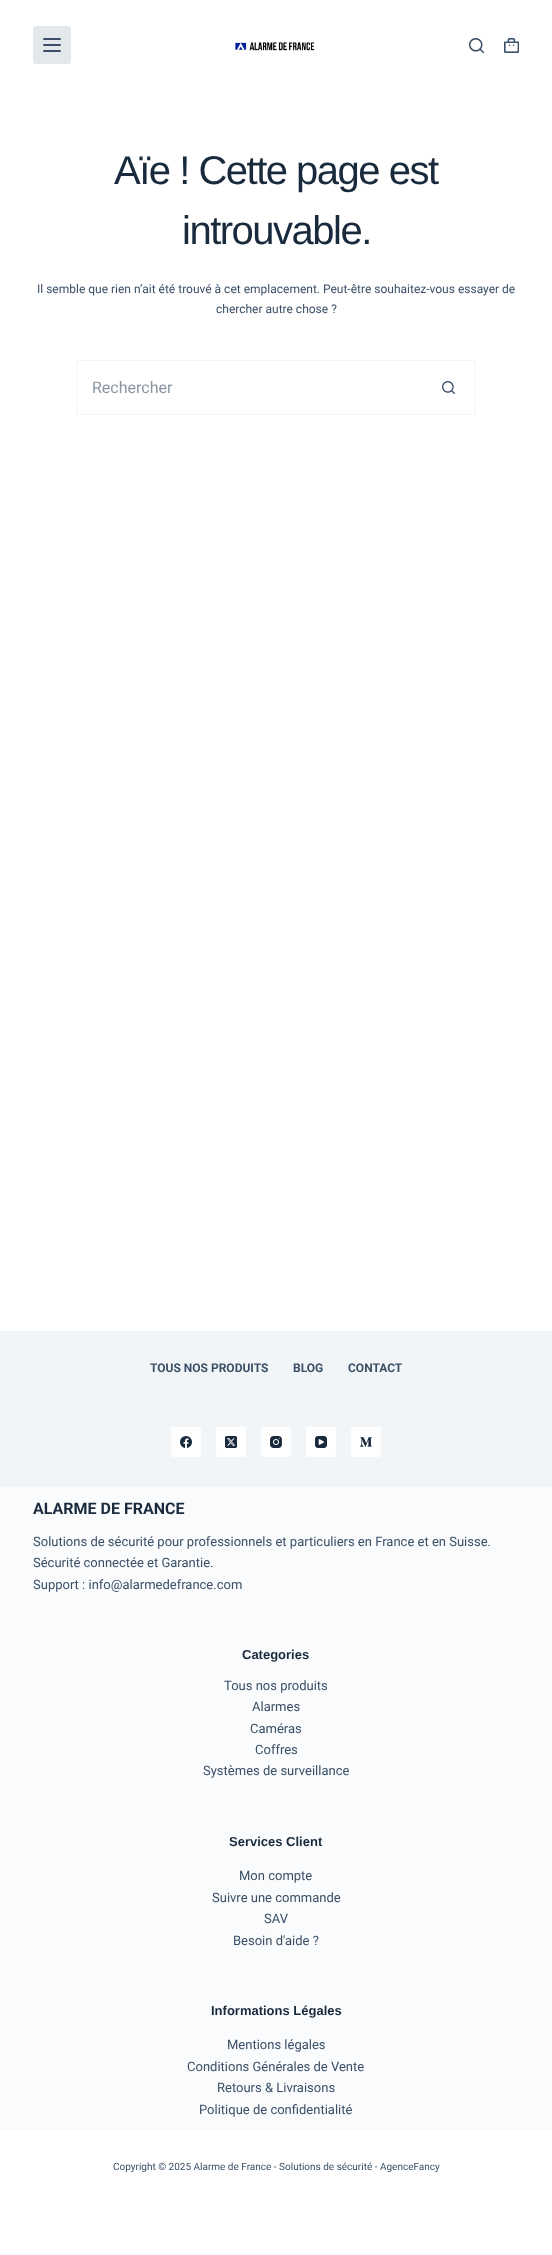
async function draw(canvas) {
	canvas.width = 552;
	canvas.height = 2255;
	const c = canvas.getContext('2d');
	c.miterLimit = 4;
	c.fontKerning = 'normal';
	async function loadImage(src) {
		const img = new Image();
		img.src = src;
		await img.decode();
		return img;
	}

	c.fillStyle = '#fff';
	c.fillRect(0, 0, 552, 2255);
	c.fillStyle = '#e3e8ed';
	c.beginPath();
	c.roundRect(33, 26, 38, 38, 3);
	c.fill();
	c.fillStyle = '#3a4f66';
	c.beginPath();
	c.roundRect(43, 38, 18, 2, 1);
	c.fill();
	c.beginPath();
	c.roundRect(43, 44, 18, 2, 1);
	c.fill();
	c.beginPath();
	c.roundRect(43, 50, 18, 2, 1);
	c.fill();
	c.drawImage(await loadImage('img1.png'), 235, 42, 80, 9);
	c.drawImage(await loadImage('img2.png'), 469, 38, 15, 15);
	c.drawImage(await loadImage('img3.png'), 504, 38, 15, 15);
	c.letterSpacing = '-1.5px';
	c.font = '40px Liberation Sans';
	c.fillStyle = '#192a3d';
	c.fillText('Aïe ! Cette page est', 114, 184);
	c.fillText('introuvable.', 182, 244);
	c.letterSpacing = '0px';
	c.font = '12px Roboto';
	c.fillStyle = '#3a4f66';
	c.fillText('Il semble que rien n’ait été trouvé à cet emplacement. Peut-être souhaitez-vous essayer de', 37, 293);
	c.fillText('chercher autre chose ?', 216, 313);
	for (const [x, y, w, h, color] of [
		[76, 360, 400, 1, '#f2f5f7'],
		[76, 414, 345, 1, '#f2f5f7'],
		[76, 360, 1, 55, '#f2f5f7'],
	]) {
		c.fillStyle = color;
		c.fillRect(x, y, w, h);
	}
	c.font = '16px Roboto';
	c.fillStyle = '#8995a3';
	c.fillText('Rechercher', 92, 393);
	c.fillStyle = '#f2f5f7';
	c.fillRect(475, 360, 1, 55);
	c.fillRect(421, 414, 55, 1);
	c.drawImage(await loadImage('img4.png'), 442, 381, 13, 13);
	c.fillStyle = '#fafbfc';
	c.fillRect(0, 1487, 552, 643);
	c.fillStyle = '#f2f5f7';
	c.fillRect(0, 1331, 552, 156);
	c.font = 'bold 12px Roboto';
	c.fillStyle = '#3a4f66';
	for (const [text, x, y] of [
		['TOUS NOS PRODUITS', 150, 1372],
		['BLOG', 293, 1372],
		['CONTACT', 348, 1372],
	]) {
		c.fillText(text, x, y);
	}
	c.fillStyle = '#fff';
	c.beginPath();
	c.roundRect(171, 1427, 30, 30, 2);
	c.fill();
	c.drawImage(await loadImage('img5.png'), 180, 1436, 12, 12);
	c.beginPath();
	c.roundRect(216, 1427, 30, 30, 2);
	c.fill();
	c.drawImage(await loadImage('img6.png'), 225, 1436, 12, 12);
	c.beginPath();
	c.roundRect(261, 1427, 30, 30, 2);
	c.fill();
	c.drawImage(await loadImage('img7.png'), 270, 1436, 12, 12);
	c.beginPath();
	c.roundRect(306, 1427, 30, 30, 2);
	c.fill();
	c.drawImage(await loadImage('img8.png'), 315, 1436, 12, 12);
	c.beginPath();
	c.roundRect(351, 1427, 30, 30, 2);
	c.fill();
	c.drawImage(await loadImage('img9.png'), 360, 1437, 12, 10);
	c.font = 'bold 16px Roboto';
	c.fillStyle = '#192a3d';
	c.fillText('ALARME DE FRANCE', 33, 1514);
	c.font = '13px Roboto';
	c.fillStyle = '#3a4f66';
	for (const [text, x, y] of [
		['Solutions de sécurité pour professionnels et particuliers en France et en Suisse.', 33, 1546],
		['Sécurité connectée et Garantie.', 33, 1567],
		['Support : info@alarmedefrance.com', 33, 1589],
	]) {
		c.fillText(text, x, y);
	}
	c.font = 'bold 13px Liberation Sans';
	c.fillStyle = '#192a3d';
	c.fillText('Categories', 242, 1659);
	c.font = '13px Roboto';
	c.fillStyle = '#3a4f66';
	for (const [text, x, y] of [
		['Tous nos produits', 224, 1690],
		['Alarmes', 252, 1711],
		['Caméras', 250, 1733],
		['Coffres', 255, 1754],
		['Systèmes de surveillance', 203, 1775],
	]) {
		c.fillText(text, x, y);
	}
	c.font = 'bold 13px Liberation Sans';
	c.fillStyle = '#192a3d';
	c.fillText('Services Client', 229, 1846);
	c.font = '13px Roboto';
	c.fillStyle = '#3a4f66';
	for (const [text, x, y] of [
		['Mon compte', 239, 1880],
		['Suivre une commande', 212, 1902],
		['SAV', 264, 1923],
		['Besoin d\'aide ?', 233, 1945],
	]) {
		c.fillText(text, x, y);
	}
	c.font = 'bold 13px Liberation Sans';
	c.fillStyle = '#192a3d';
	c.fillText('Informations Légales', 211, 2015);
	c.font = '13px Roboto';
	c.fillStyle = '#3a4f66';
	for (const [text, x, y] of [
		['Mentions légales', 227, 2049],
		['Conditions Générales de Vente', 187, 2071],
		['Retours & Livraisons', 217, 2092],
		['Politique de confidentialité', 199, 2114],
	]) {
		c.fillText(text, x, y);
	}
	c.font = '10px Roboto';
	c.fillText('Copyright © 2025 Alarme de France - Solutions de sécurité - AgenceFancy', 113, 2170);
}

draw(document.querySelector('canvas'));
